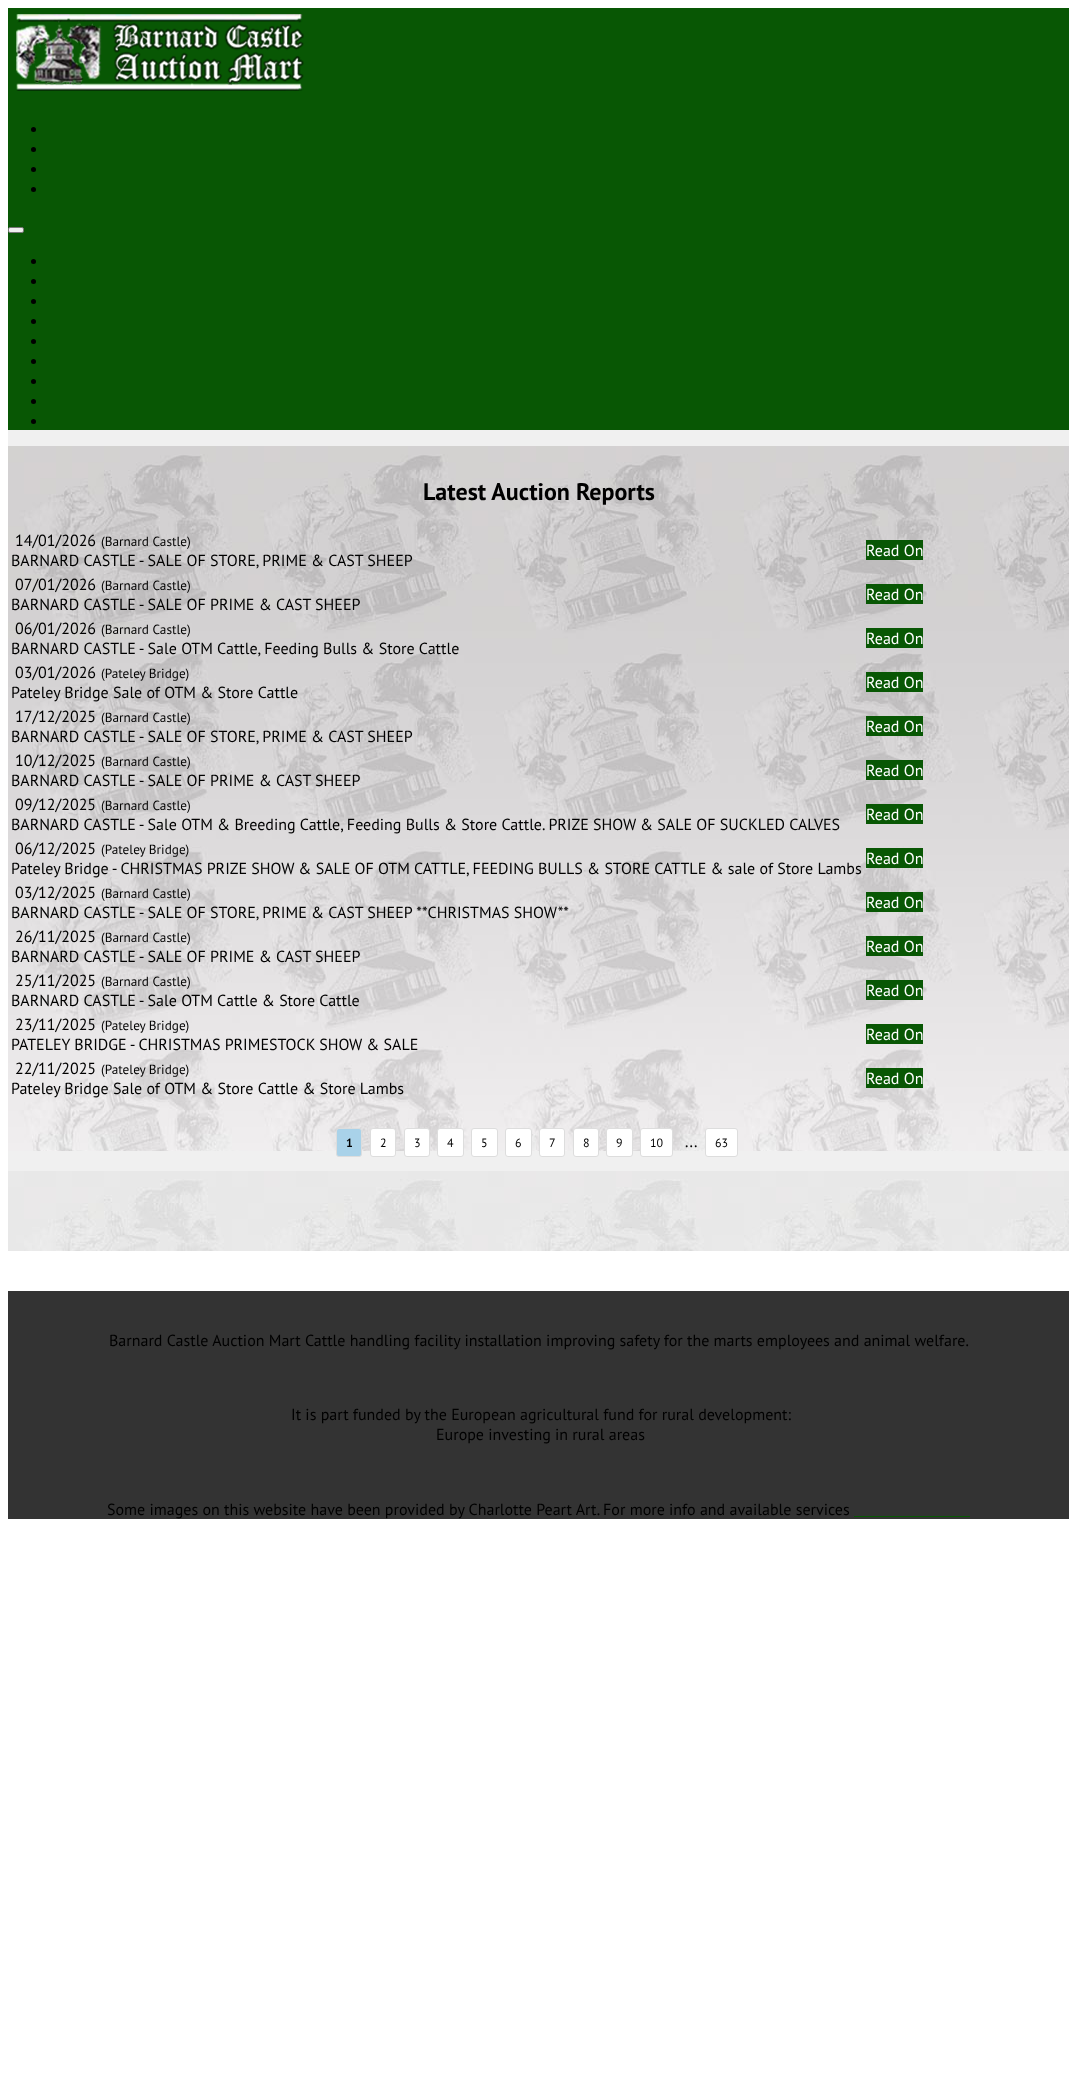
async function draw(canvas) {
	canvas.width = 1077;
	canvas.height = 2089;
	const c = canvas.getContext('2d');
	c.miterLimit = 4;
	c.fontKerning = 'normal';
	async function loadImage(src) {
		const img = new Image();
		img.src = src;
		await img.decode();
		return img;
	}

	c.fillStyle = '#fff';
	c.fillRect(0, 0, 1077, 2089);
	c.fillStyle = '#f0f0f0';
	c.fillRect(8, 430, 1061, 741);
	c.fillStyle = '#085704';
	c.fillRect(8, 8, 1061, 422);
	c.drawImage(await loadImage('img1.png'), 16, 14, 288, 77);
	c.fillStyle = '#000';
	c.beginPath();
	c.arc(33.5, 129.5, 2.5, 0, 2 * Math.PI);
	c.fill();
	c.beginPath();
	c.arc(33.5, 149.5, 2.5, 0, 2 * Math.PI);
	c.fill();
	c.beginPath();
	c.arc(33.5, 169.5, 2.5, 0, 2 * Math.PI);
	c.fill();
	c.beginPath();
	c.arc(33.5, 189.5, 2.5, 0, 2 * Math.PI);
	c.fill();
	c.fillStyle = '#efefef';
	c.beginPath();
	c.roundRect(8.5, 227.5, 15, 5, 1.5);
	c.fill();
	c.strokeStyle = '#767676';
	c.stroke();
	c.fillStyle = '#000';
	c.beginPath();
	c.arc(33.5, 261.5, 2.5, 0, 2 * Math.PI);
	c.fill();
	c.beginPath();
	c.arc(33.5, 281.5, 2.5, 0, 2 * Math.PI);
	c.fill();
	c.beginPath();
	c.arc(33.5, 301.5, 2.5, 0, 2 * Math.PI);
	c.fill();
	c.beginPath();
	c.arc(33.5, 321.5, 2.5, 0, 2 * Math.PI);
	c.fill();
	c.beginPath();
	c.arc(33.5, 341.5, 2.5, 0, 2 * Math.PI);
	c.fill();
	c.beginPath();
	c.arc(33.5, 361.5, 2.5, 0, 2 * Math.PI);
	c.fill();
	c.beginPath();
	c.arc(33.5, 381.5, 2.5, 0, 2 * Math.PI);
	c.fill();
	c.beginPath();
	c.arc(33.5, 401.5, 2.5, 0, 2 * Math.PI);
	c.fill();
	c.beginPath();
	c.arc(33.5, 421.5, 2.5, 0, 2 * Math.PI);
	c.fill();
	c.drawImage(await loadImage('img2.png'), 8, 446, 1061, 705);
	c.font = 'bold 24px PT Sans';
	c.fillText('Latest Auction Reports', 423, 500);
	c.font = '16px PT Sans';
	c.fillText('14/01/2026', 15, 546);
	c.font = '13.25px PT Sans';
	c.fillText('(Barnard Castle)', 101, 546);
	c.font = '16px PT Sans';
	c.fillText('BARNARD CASTLE - SALE OF STORE, PRIME & CAST SHEEP', 11, 566);
	c.fillStyle = '#085704';
	c.fillRect(866, 540, 57, 20);
	c.fillStyle = '#fff';
	c.fillText('Read On', 866, 556);
	c.fillStyle = '#000';
	c.fillText('07/01/2026', 15, 590);
	c.font = '13.25px PT Sans';
	c.fillText('(Barnard Castle)', 101, 590);
	c.font = '16px PT Sans';
	c.fillText('BARNARD CASTLE - SALE OF PRIME & CAST SHEEP', 11, 610);
	c.fillStyle = '#085704';
	c.fillRect(866, 584, 57, 20);
	c.fillStyle = '#fff';
	c.fillText('Read On', 866, 600);
	c.fillStyle = '#000';
	c.fillText('06/01/2026', 15, 634);
	c.font = '13.25px PT Sans';
	c.fillText('(Barnard Castle)', 101, 634);
	c.font = '16px PT Sans';
	c.fillText('BARNARD CASTLE - Sale OTM Cattle, Feeding Bulls & Store Cattle', 11, 654);
	c.fillStyle = '#085704';
	c.fillRect(866, 628, 57, 20);
	c.fillStyle = '#fff';
	c.fillText('Read On', 866, 644);
	c.fillStyle = '#000';
	c.fillText('03/01/2026', 15, 678);
	c.font = '13.25px PT Sans';
	c.fillText('(Pateley Bridge)', 101, 678);
	c.font = '16px PT Sans';
	c.fillText('Pateley Bridge Sale of OTM & Store Cattle', 11, 698);
	c.fillStyle = '#085704';
	c.fillRect(866, 672, 57, 20);
	c.fillStyle = '#fff';
	c.fillText('Read On', 866, 688);
	c.fillStyle = '#000';
	c.fillText('17/12/2025', 15, 722);
	c.font = '13.25px PT Sans';
	c.fillText('(Barnard Castle)', 101, 722);
	c.font = '16px PT Sans';
	c.fillText('BARNARD CASTLE - SALE OF STORE, PRIME & CAST SHEEP', 11, 742);
	c.fillStyle = '#085704';
	c.fillRect(866, 716, 57, 20);
	c.fillStyle = '#fff';
	c.fillText('Read On', 866, 732);
	c.fillStyle = '#000';
	c.fillText('10/12/2025', 15, 766);
	c.font = '13.25px PT Sans';
	c.fillText('(Barnard Castle)', 101, 766);
	c.font = '16px PT Sans';
	c.fillText('BARNARD CASTLE - SALE OF PRIME & CAST SHEEP', 11, 786);
	c.fillStyle = '#085704';
	c.fillRect(866, 760, 57, 20);
	c.fillStyle = '#fff';
	c.fillText('Read On', 866, 776);
	c.fillStyle = '#000';
	c.fillText('09/12/2025', 15, 810);
	c.font = '13.25px PT Sans';
	c.fillText('(Barnard Castle)', 101, 810);
	c.font = '16px PT Sans';
	c.fillText('BARNARD CASTLE - Sale OTM & Breeding Cattle, Feeding Bulls & Store Cattle. PRIZE SHOW & SALE OF SUCKLED CALVES', 11, 830);
	c.fillStyle = '#085704';
	c.fillRect(866, 804, 57, 20);
	c.fillStyle = '#fff';
	c.fillText('Read On', 866, 820);
	c.fillStyle = '#000';
	c.fillText('06/12/2025', 15, 854);
	c.font = '13.25px PT Sans';
	c.fillText('(Pateley Bridge)', 101, 854);
	c.font = '16px PT Sans';
	c.fillText('Pateley Bridge - CHRISTMAS PRIZE SHOW & SALE OF OTM CATTLE, FEEDING BULLS & STORE CATTLE & sale of Store Lambs', 11, 874);
	c.fillStyle = '#085704';
	c.fillRect(866, 848, 57, 20);
	c.fillStyle = '#fff';
	c.fillText('Read On', 866, 864);
	c.fillStyle = '#000';
	c.fillText('03/12/2025', 15, 898);
	c.font = '13.25px PT Sans';
	c.fillText('(Barnard Castle)', 101, 898);
	c.font = '16px PT Sans';
	c.fillText('BARNARD CASTLE - SALE OF STORE, PRIME & CAST SHEEP **CHRISTMAS SHOW**', 11, 918);
	c.fillStyle = '#085704';
	c.fillRect(866, 892, 57, 20);
	c.fillStyle = '#fff';
	c.fillText('Read On', 866, 908);
	c.fillStyle = '#000';
	c.fillText('26/11/2025', 15, 942);
	c.font = '13.25px PT Sans';
	c.fillText('(Barnard Castle)', 101, 942);
	c.font = '16px PT Sans';
	c.fillText('BARNARD CASTLE - SALE OF PRIME & CAST SHEEP', 11, 962);
	c.fillStyle = '#085704';
	c.fillRect(866, 936, 57, 20);
	c.fillStyle = '#fff';
	c.fillText('Read On', 866, 952);
	c.fillStyle = '#000';
	c.fillText('25/11/2025', 15, 986);
	c.font = '13.25px PT Sans';
	c.fillText('(Barnard Castle)', 101, 986);
	c.font = '16px PT Sans';
	c.fillText('BARNARD CASTLE - Sale OTM Cattle & Store Cattle', 11, 1006);
	c.fillStyle = '#085704';
	c.fillRect(866, 980, 57, 20);
	c.fillStyle = '#fff';
	c.fillText('Read On', 866, 996);
	c.fillStyle = '#000';
	c.fillText('23/11/2025', 15, 1030);
	c.font = '13.25px PT Sans';
	c.fillText('(Pateley Bridge)', 101, 1030);
	c.font = '16px PT Sans';
	c.fillText('PATELEY BRIDGE - CHRISTMAS PRIMESTOCK SHOW & SALE', 11, 1050);
	c.fillStyle = '#085704';
	c.fillRect(866, 1024, 57, 20);
	c.fillStyle = '#fff';
	c.fillText('Read On', 866, 1040);
	c.fillStyle = '#000';
	c.fillText('22/11/2025', 15, 1074);
	c.font = '13.25px PT Sans';
	c.fillText('(Pateley Bridge)', 101, 1074);
	c.font = '16px PT Sans';
	c.fillText('Pateley Bridge Sale of OTM & Store Cattle & Store Lambs', 11, 1094);
	c.fillStyle = '#085704';
	c.fillRect(866, 1068, 57, 20);
	c.fillStyle = '#fff';
	c.fillText('Read On', 866, 1084);
	c.fillStyle = '#a9d2e9';
	c.beginPath();
	c.roundRect(336.5, 1128.5, 25, 28, 2.5);
	c.fill();
	c.strokeStyle = '#ddd';
	c.stroke();
	c.font = 'bold 12px PT Sans';
	c.fillStyle = '#000';
	c.fillText('1', 346, 1147);
	c.fillStyle = '#fff';
	c.beginPath();
	c.roundRect(370.5, 1128.5, 25, 28, 2.5);
	c.fill();
	c.stroke();
	c.font = '12px PT Sans';
	c.fillStyle = '#000';
	c.fillText('2', 380, 1147);
	c.fillStyle = '#fff';
	c.beginPath();
	c.roundRect(404.5, 1128.5, 25, 28, 2.5);
	c.fill();
	c.stroke();
	c.fillStyle = '#000';
	c.fillText('3', 414, 1147);
	c.fillStyle = '#fff';
	c.beginPath();
	c.roundRect(437.5, 1128.5, 26, 28, 2.5);
	c.fill();
	c.stroke();
	c.fillStyle = '#000';
	c.fillText('4', 447, 1147);
	c.fillStyle = '#fff';
	c.beginPath();
	c.roundRect(471.5, 1128.5, 26, 28, 2.5);
	c.fill();
	c.stroke();
	c.fillStyle = '#000';
	c.fillText('5', 481, 1147);
	c.fillStyle = '#fff';
	c.beginPath();
	c.roundRect(505.5, 1128.5, 26, 28, 2.5);
	c.fill();
	c.stroke();
	c.fillStyle = '#000';
	c.fillText('6', 515, 1147);
	c.fillStyle = '#fff';
	c.beginPath();
	c.roundRect(539.5, 1128.5, 25, 28, 2.5);
	c.fill();
	c.stroke();
	c.fillStyle = '#000';
	c.fillText('7', 549, 1147);
	c.fillStyle = '#fff';
	c.beginPath();
	c.roundRect(573.5, 1128.5, 25, 28, 2.5);
	c.fill();
	c.stroke();
	c.fillStyle = '#000';
	c.fillText('8', 583, 1147);
	c.fillStyle = '#fff';
	c.beginPath();
	c.roundRect(606.5, 1128.5, 26, 28, 2.5);
	c.fill();
	c.stroke();
	c.fillStyle = '#000';
	c.fillText('9', 616, 1147);
	c.fillStyle = '#fff';
	c.beginPath();
	c.roundRect(640.5, 1128.5, 32, 28, 2.5);
	c.fill();
	c.stroke();
	c.fillStyle = '#000';
	c.fillText('10', 650, 1147);
	c.font = '16px PT Sans';
	c.fillText('...', 685, 1147);
	c.fillStyle = '#fff';
	c.beginPath();
	c.roundRect(705.5, 1128.5, 32, 28, 2.5);
	c.fill();
	c.stroke();
	c.font = '12px PT Sans';
	c.fillStyle = '#000';
	c.fillText('63', 715, 1147);
	c.drawImage(await loadImage('img3.png'), 8, 1171, 1061, 80);
	c.fillStyle = '#333';
	c.fillRect(8, 1291, 1061, 228);
	c.font = '16px PT Sans';
	c.fillStyle = '#000';
	for (const [text, x, y] of [
		['Barnard Castle Auction Mart Cattle handling facility installation improving safety for the marts employees and animal welfare.', 109, 1346],
		['It is part funded by the European agricultural fund for rural development:', 291, 1420],
		['Europe investing in rural areas', 436, 1440],
		['Some images on this website have been provided by Charlotte Peart Art. For more info and available services', 107, 1515],
	]) {
		c.fillText(text, x, y);
	}
	c.fillStyle = '#085704';
	c.fillRect(854, 1516, 116, 1);
}

draw(document.querySelector('canvas'));
